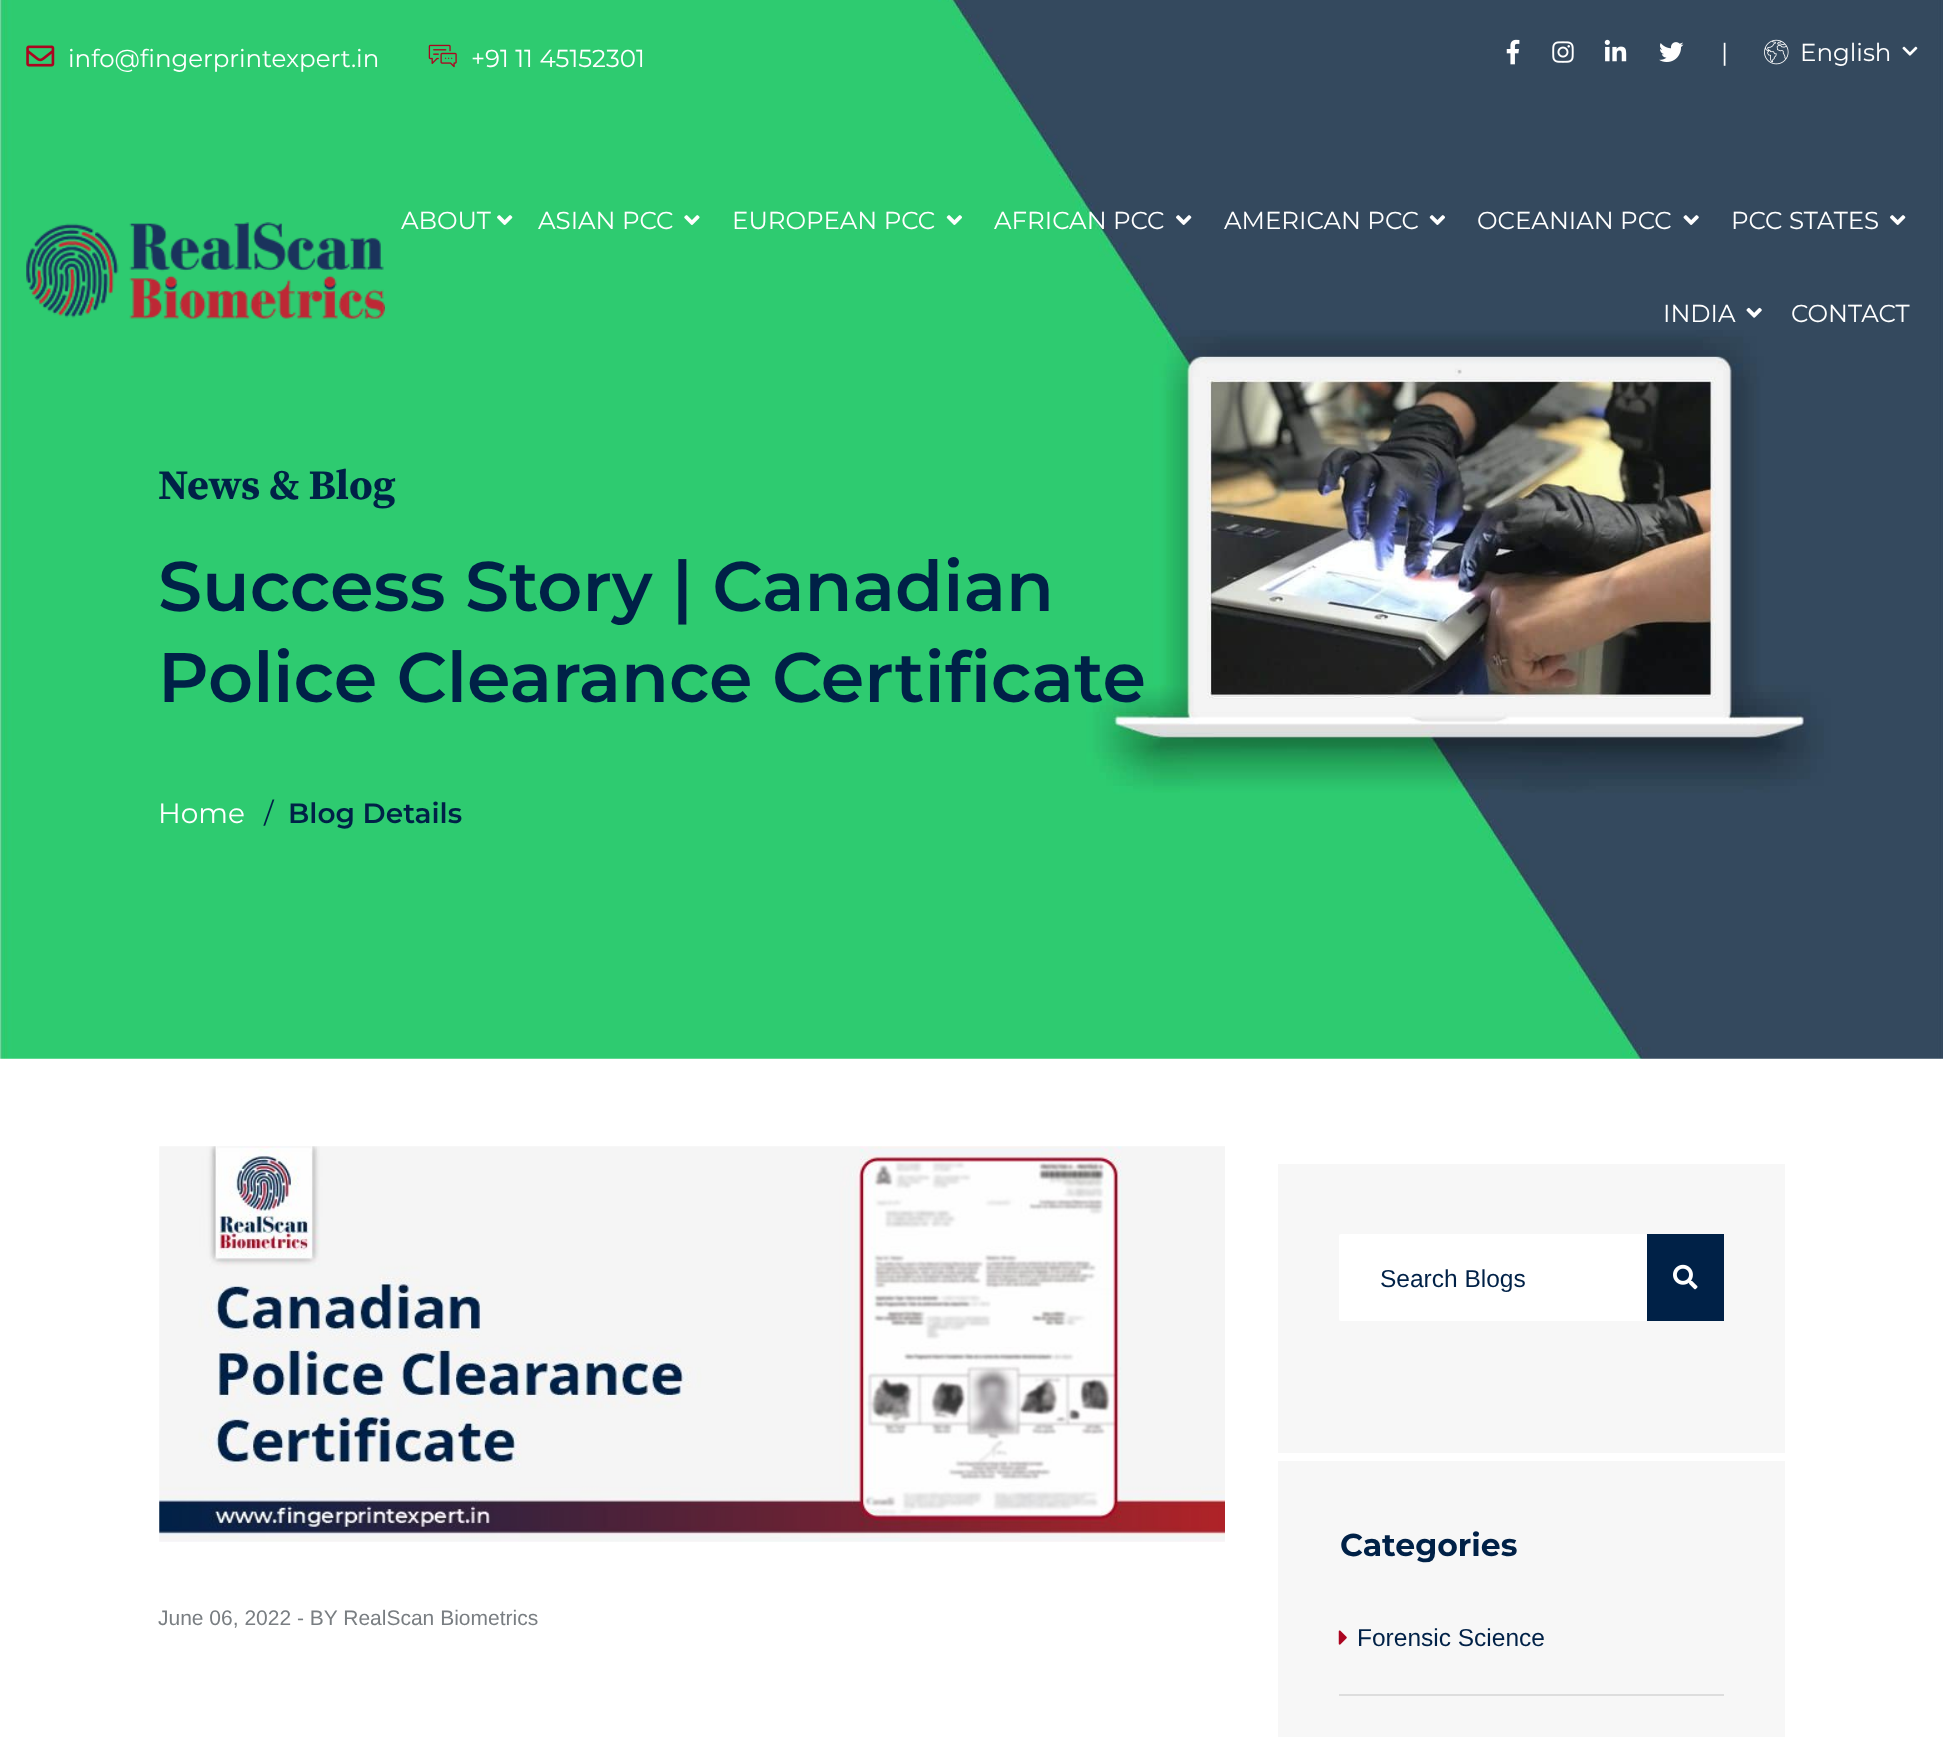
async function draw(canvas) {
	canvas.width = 1943;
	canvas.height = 1737;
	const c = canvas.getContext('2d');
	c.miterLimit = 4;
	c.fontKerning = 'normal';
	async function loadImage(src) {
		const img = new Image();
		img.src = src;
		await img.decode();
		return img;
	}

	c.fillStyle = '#fff';
	c.fillRect(0, 0, 1943, 1737);
	c.drawImage(await loadImage('img17.png'), 0, 0, 1943, 1059);
	c.drawImage(await loadImage('img1.png'), 26, 45, 29, 22);
	c.font = '24.5px Montserrat';
	c.fillText('info@fingerprintexpert.in', 68, 67);
	c.drawImage(await loadImage('img2.png'), 428, 44, 29, 24);
	c.fillText('+91 11 45152301', 471, 67);
	c.drawImage(await loadImage('img3.png'), 1506, 39, 14, 26);
	c.drawImage(await loadImage('img4.png'), 1552, 41, 22, 22);
	c.drawImage(await loadImage('img5.png'), 1604, 39, 23, 23);
	c.drawImage(await loadImage('img6.png'), 1659, 42, 25, 20);
	c.fillText('|', 1721, 61);
	c.drawImage(await loadImage('img7.png'), 1764, 39, 25, 26);
	c.fillText('English', 1800, 61);
	c.drawImage(await loadImage('img8.png'), 1902, 46, 16, 10);
	c.drawImage(await loadImage('img9.png'), 26, 222, 359, 97);
	c.fillText('ABOUT', 401, 229);
	c.drawImage(await loadImage('img10.png'), 497, 215, 16, 10);
	c.fillText('ASIAN PCC', 538, 229);
	c.drawImage(await loadImage('img11.png'), 684, 215, 16, 10);
	c.fillText('EUROPEAN PCC', 732, 229);
	c.drawImage(await loadImage('img12.png'), 946, 215, 16, 10);
	c.fillText('AFRICAN PCC', 994, 229);
	c.drawImage(await loadImage('img13.png'), 1176, 215, 16, 10);
	c.fillText('AMERICAN PCC', 1224, 229);
	c.drawImage(await loadImage('img14.png'), 1429, 215, 16, 10);
	c.fillText('OCEANIAN PCC', 1477, 229);
	c.drawImage(await loadImage('img15.png'), 1683, 215, 16, 10);
	c.fillText('PCC STATES', 1731, 229);
	c.drawImage(await loadImage('img13.png'), 1890, 215, 16, 10);
	c.fillText('INDIA', 1663, 322);
	c.drawImage(await loadImage('img16.png'), 1746, 307, 16, 11);
	c.fillText('CONTACT', 1791, 322);
	c.font = 'bold 42px Source Serif Pro';
	c.fillStyle = '#002147';
	c.fillText('News & Blog', 158, 499);
	c.font = '600 70px Montserrat';
	c.fillText('Success Story | Canadian', 158, 611);
	c.fillText('Police Clearance Certificate', 158, 702);
	c.font = '28px Montserrat';
	c.fillStyle = '#fff';
	c.fillText('Home', 158, 823);
	c.fillStyle = '#002147';
	c.fillText('/', 264, 823);
	c.font = '600 28px Montserrat';
	c.fillText('Blog Details', 288, 823);
	c.drawImage(await loadImage('img18.png'), 159, 1146, 1066, 396);
	c.font = '21px Liberation Sans';
	c.fillStyle = '#797e82';
	c.fillText('June 06, 2022 - BY RealScan Biometrics', 158, 1625);
	c.fillStyle = '#f7f7f7';
	c.fillRect(1278, 1164, 507, 289);
	c.fillStyle = '#fff';
	c.beginPath();
	c.roundRect(1339, 1234, 308, 87, 2);
	c.fill();
	c.font = '24.5px Liberation Sans';
	c.fillStyle = '#002147';
	c.fillText('Search Blogs', 1380, 1287);
	c.fillRect(1647, 1234, 77, 87);
	c.drawImage(await loadImage('img19.png'), 1673, 1264, 25, 26);
	c.fillStyle = '#f7f7f7';
	c.fillRect(1278, 1461, 507, 276);
	c.font = 'bold 31.5px Montserrat';
	c.fillStyle = '#002147';
	c.fillText('Categories', 1340, 1556);
	c.fillStyle = '#ddd';
	c.fillRect(1339, 1694, 385, 2);
	c.drawImage(await loadImage('img20.png'), 1338, 1630, 9, 15);
	c.font = '24.5px Liberation Sans';
	c.fillStyle = '#002147';
	c.fillText('Forensic Science', 1357, 1646);
}

draw(document.querySelector('canvas'));
